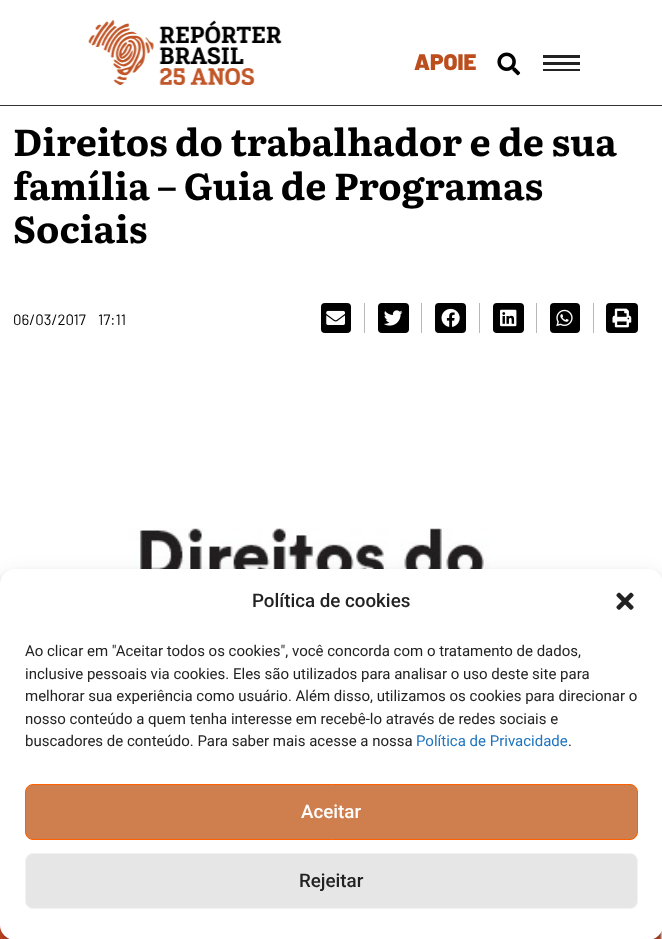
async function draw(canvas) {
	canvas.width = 662;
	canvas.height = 939;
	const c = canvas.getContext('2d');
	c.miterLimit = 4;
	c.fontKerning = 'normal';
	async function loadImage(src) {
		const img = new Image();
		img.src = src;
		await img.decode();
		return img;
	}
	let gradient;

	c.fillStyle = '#fff';
	c.fillRect(0, 0, 662, 939);
	c.fillStyle = '#333';
	c.fillRect(0, 105, 662, 1);
	c.drawImage(await loadImage('img1.png'), 88, 20, 194, 65);
	c.font = '900 22.5px Barlow';
	c.fillStyle = '#bc4e1d';
	c.fillText('APOIE', 414, 70);
	c.drawImage(await loadImage('img2.png'), 497, 52, 24, 24);
	for (const [x, y, w, h, color] of [
		[543, 55, 37, 3, '#222'],
		[543, 62, 37, 3, '#222'],
		[543, 69, 37, 2, '#222'],
	]) {
		c.fillStyle = color;
		c.fillRect(x, y, w, h);
	}
	c.font = 'bold 37.5px Literata';
	c.fillStyle = '#000';
	for (const [text, x, y] of [
		['Direitos do trabalhador e de sua', 13, 156],
		['família – Guia de Programas', 13, 200],
		['Sociais', 13, 243],
	]) {
		c.fillText(text, x, y);
	}
	c.font = '15px Barlow';
	c.fillText('06/03/2017', 13, 325);
	c.fillText('17:11', 98, 325);
	c.fillStyle = '#b8b8b8';
	c.fillRect(364, 303, 1, 30);
	c.fillStyle = '#000';
	c.beginPath();
	c.roundRect(321, 303, 30, 30, 4);
	c.fill();
	gradient = c.createLinearGradient(321, 318, 351, 318);
	gradient.addColorStop(0, '#0000001f');
	gradient.addColorStop(1, '#00000000');
	c.fillStyle = gradient;
	c.beginPath();
	c.roundRect(321, 303, 30, 30, 4);
	c.fill();
	c.drawImage(await loadImage('img3.png'), 326, 310, 19, 15);
	c.fillStyle = '#b8b8b8';
	c.fillRect(421, 303, 1, 30);
	c.fillStyle = '#000';
	c.beginPath();
	c.roundRect(378, 303, 31, 30, 4);
	c.fill();
	gradient = c.createLinearGradient(378, 318, 409, 318);
	gradient.addColorStop(0, '#0000001f');
	gradient.addColorStop(1, '#00000000');
	c.fillStyle = gradient;
	c.beginPath();
	c.roundRect(378, 303, 31, 30, 4);
	c.fill();
	c.drawImage(await loadImage('img4.png'), 384, 310, 19, 16);
	c.fillStyle = '#b8b8b8';
	c.fillRect(479, 303, 1, 30);
	c.fillStyle = '#000';
	c.beginPath();
	c.roundRect(435, 303, 31, 30, 4);
	c.fill();
	gradient = c.createLinearGradient(435, 318, 466, 318);
	gradient.addColorStop(0, '#0000001f');
	gradient.addColorStop(1, '#00000000');
	c.fillStyle = gradient;
	c.beginPath();
	c.roundRect(435, 303, 31, 30, 4);
	c.fill();
	c.drawImage(await loadImage('img5.png'), 441, 308, 19, 19);
	c.fillStyle = '#b8b8b8';
	c.fillRect(536, 303, 1, 30);
	c.fillStyle = '#000';
	c.beginPath();
	c.roundRect(493, 303, 31, 30, 4);
	c.fill();
	gradient = c.createLinearGradient(493, 318, 524, 318);
	gradient.addColorStop(0, '#0000001f');
	gradient.addColorStop(1, '#00000000');
	c.fillStyle = gradient;
	c.beginPath();
	c.roundRect(493, 303, 31, 30, 4);
	c.fill();
	c.drawImage(await loadImage('img6.png'), 500, 309, 17, 18);
	c.fillStyle = '#b8b8b8';
	c.fillRect(593, 303, 1, 30);
	c.fillStyle = '#000';
	c.beginPath();
	c.roundRect(550, 303, 30, 30, 4);
	c.fill();
	gradient = c.createLinearGradient(550, 318, 580, 318);
	gradient.addColorStop(0, '#0000001f');
	gradient.addColorStop(1, '#00000000');
	c.fillStyle = gradient;
	c.beginPath();
	c.roundRect(550, 303, 30, 30, 4);
	c.fill();
	c.drawImage(await loadImage('img7.png'), 556, 309, 17, 18);
	c.fillStyle = '#000';
	c.beginPath();
	c.roundRect(606, 303, 32, 30, 4);
	c.fill();
	gradient = c.createLinearGradient(606, 318, 638, 318);
	gradient.addColorStop(0, '#0000001f');
	gradient.addColorStop(1, '#00000000');
	c.fillStyle = gradient;
	c.beginPath();
	c.roundRect(606, 303, 32, 30, 4);
	c.fill();
	c.drawImage(await loadImage('img8.png'), 612, 308, 20, 20);
	c.drawImage(await loadImage('img9.png'), 0, 528, 662, 411);
	c.fillStyle = '#0000003b';
	c.filter = 'blur(4px)';
	c.beginPath();
	c.roundRect(0, 576, 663, 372, 15);
	c.fill();
	c.filter = 'none';
	c.fillStyle = '#00000030';
	c.filter = 'blur(12.5px)';
	c.beginPath();
	c.roundRect(0, 581, 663, 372, 15);
	c.fill();
	c.filter = 'none';
	c.fillStyle = '#fff';
	c.beginPath();
	c.roundRect(0, 569, 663, 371, 15);
	c.fill();
	c.font = '500 18.75px Roboto';
	c.fillStyle = '#222';
	c.fillText('Política de cookies', 252, 607);
	c.drawImage(await loadImage('img10.png'), 616, 592, 18, 18);
	c.font = '15px Roboto';
	for (const [text, x, y] of [
		['Ao clicar em "Aceitar todos os cookies", você concorda com o tratamento de dados,', 25, 656],
		['inclusive pessoais via cookies. Eles são utilizados para analisar o uso deste site para', 25, 679],
		['melhorar sua experiência como usuário. Além disso, utilizamos os cookies para direcionar o', 25, 701],
		['nosso conteúdo a quem tenha interesse em recebê-lo através de redes sociais e', 25, 724],
		['buscadores de conteúdo. Para saber mais acesse a nossa', 25, 746],
	]) {
		c.fillText(text, x, y);
	}
	c.fillStyle = '#1e73be';
	c.fillText('Política de Privacidade', 416, 746);
	c.fillStyle = '#222';
	c.fillText('.', 568, 746);
	c.fillStyle = '#ce7f4d';
	c.beginPath();
	c.roundRect(25.5, 784.5, 612, 55, 7.5);
	c.fill();
	c.strokeStyle = '#ff6000';
	c.stroke();
	c.font = '500 18.75px Roboto';
	c.fillStyle = '#fff';
	c.fillText('Aceitar', 301, 818);
	c.fillStyle = '#e6e6e6';
	c.beginPath();
	c.roundRect(25.5, 853.5, 612, 55, 7.5);
	c.fill();
	c.strokeStyle = '#f2f2f2';
	c.stroke();
	c.fillStyle = '#222';
	c.fillText('Rejeitar', 299, 887);
}

draw(document.querySelector('canvas'));
